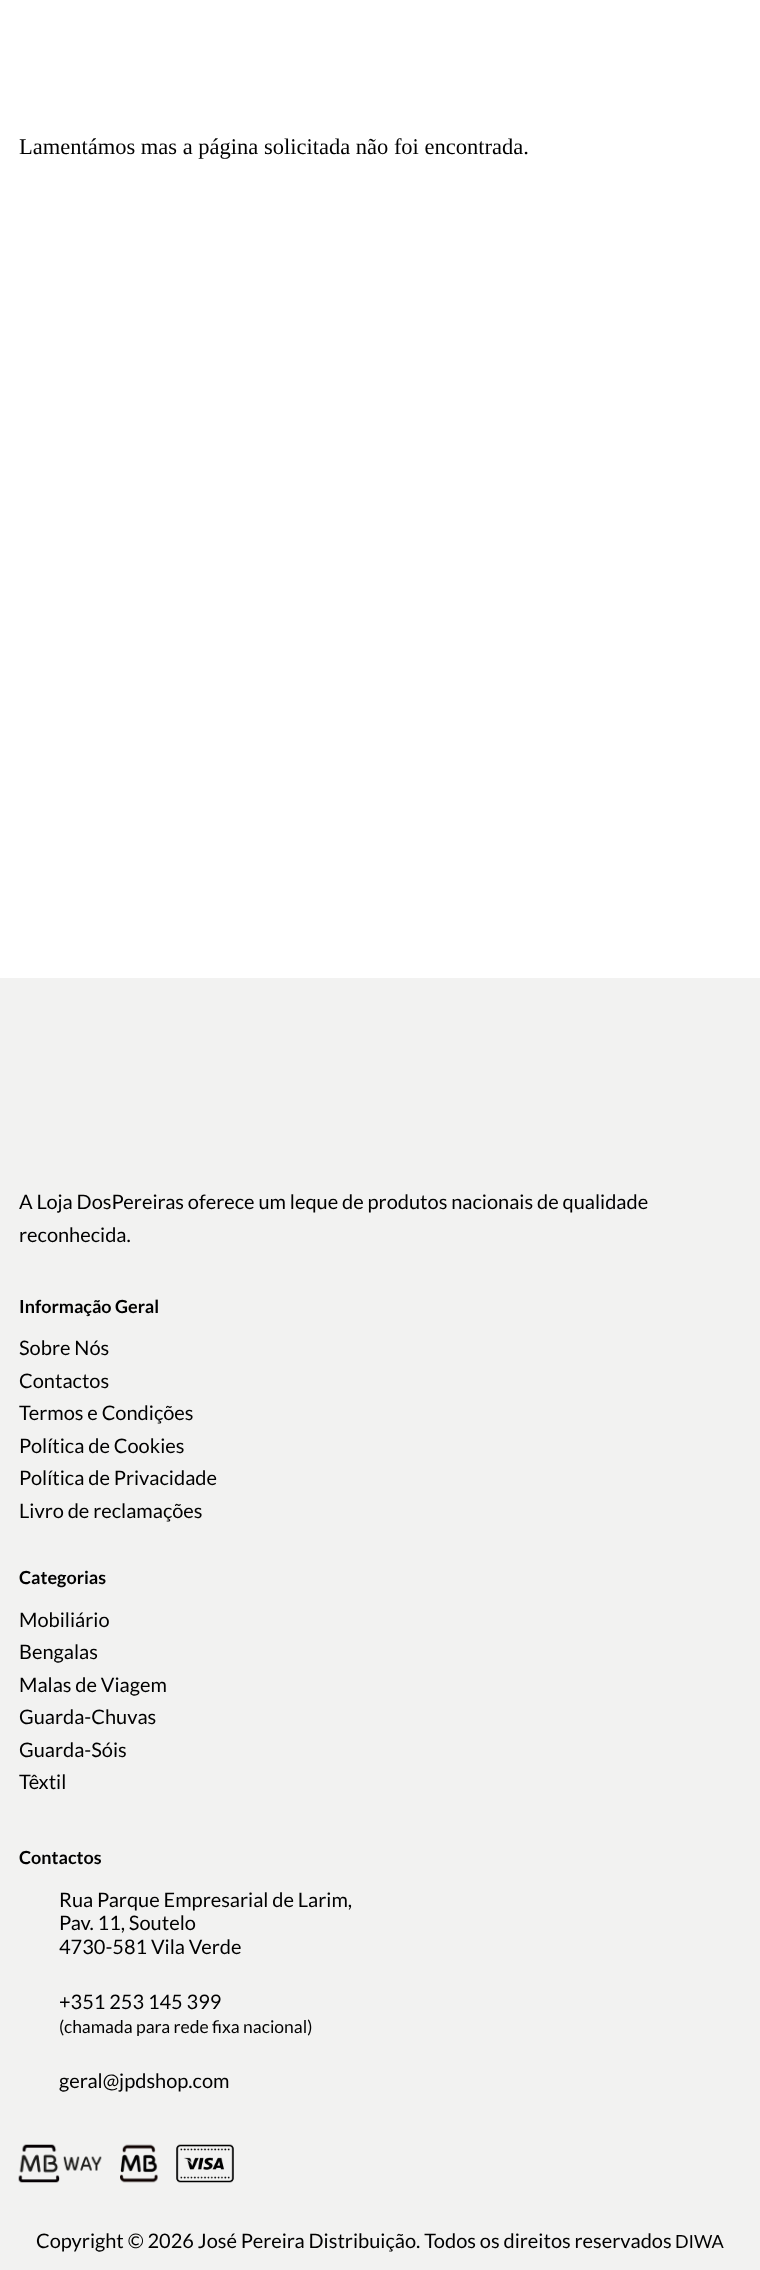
async function draw(canvas) {
	canvas.width = 760;
	canvas.height = 2270;
	const c = canvas.getContext('2d');
	c.miterLimit = 4;
	c.fontKerning = 'normal';
	async function loadImage(src) {
		const img = new Image();
		img.src = src;
		await img.decode();
		return img;
	}

	c.fillStyle = '#fff';
	c.fillRect(0, 0, 760, 2270);
	c.font = '22.5px Liberation Serif';
	c.fillStyle = '#000';
	c.fillText('Lamentámos mas a página solicitada não foi encontrada.', 19, 154);
	c.fillStyle = '#f2f2f1';
	c.fillRect(0, 978, 760, 1292);
	c.font = '20px Lato';
	c.fillStyle = '#000';
	c.fillText('A Loja DosPereiras oferece um leque de produtos nacionais de qualidade', 19, 1209);
	c.fillText('reconhecida.', 19, 1242);
	c.font = 'bold 18px Lato';
	c.fillText('Informação Geral', 19, 1313);
	c.font = '20px Lato';
	for (const [text, x, y] of [
		['Sobre Nós', 19, 1355],
		['Contactos', 19, 1388],
		['Termos e Condições', 19, 1420],
		['Política de Cookies', 19, 1453],
		['Política de Privacidade', 19, 1485],
		['Livro de reclamações', 19, 1518],
	]) {
		c.fillText(text, x, y);
	}
	c.font = 'bold 18px Lato';
	c.fillText('Categorias', 19, 1584);
	c.font = '20px Lato';
	for (const [text, x, y] of [
		['Mobiliário', 19, 1627],
		['Bengalas', 19, 1659],
		['Malas de Viagem', 19, 1692],
		['Guarda-Chuvas', 19, 1724],
		['Guarda-Sóis', 19, 1757],
		['Têxtil', 19, 1789],
	]) {
		c.fillText(text, x, y);
	}
	c.font = 'bold 18px Lato';
	c.fillText('Contactos', 19, 1864);
	c.font = '20px Lato';
	for (const [text, x, y] of [
		['Rua Parque Empresarial de Larim,', 59, 1907],
		['Pav. 11, Soutelo', 59, 1930],
		['4730-581 Vila Verde', 59, 1954],
		['+351 253 145 399', 59, 2009],
	]) {
		c.fillText(text, x, y);
	}
	c.font = '17.5px Lato';
	c.fillText('(chamada para rede fixa nacional)', 59, 2033);
	c.font = '20px Lato';
	c.fillText('geral@jpdshop.com', 59, 2088);
	c.drawImage(await loadImage('img1.png'), 18, 2144, 84, 39);
	c.drawImage(await loadImage('img2.png'), 120, 2144, 38, 39);
	c.drawImage(await loadImage('img3.png'), 176, 2144, 58, 39);
	c.fillText('Copyright © 2026 José Pereira Distribuição. Todos os direitos reservados', 36, 2248);
	c.font = '18px Lato';
	c.fillText('DIWA', 675, 2248);
}

draw(document.querySelector('canvas'));
